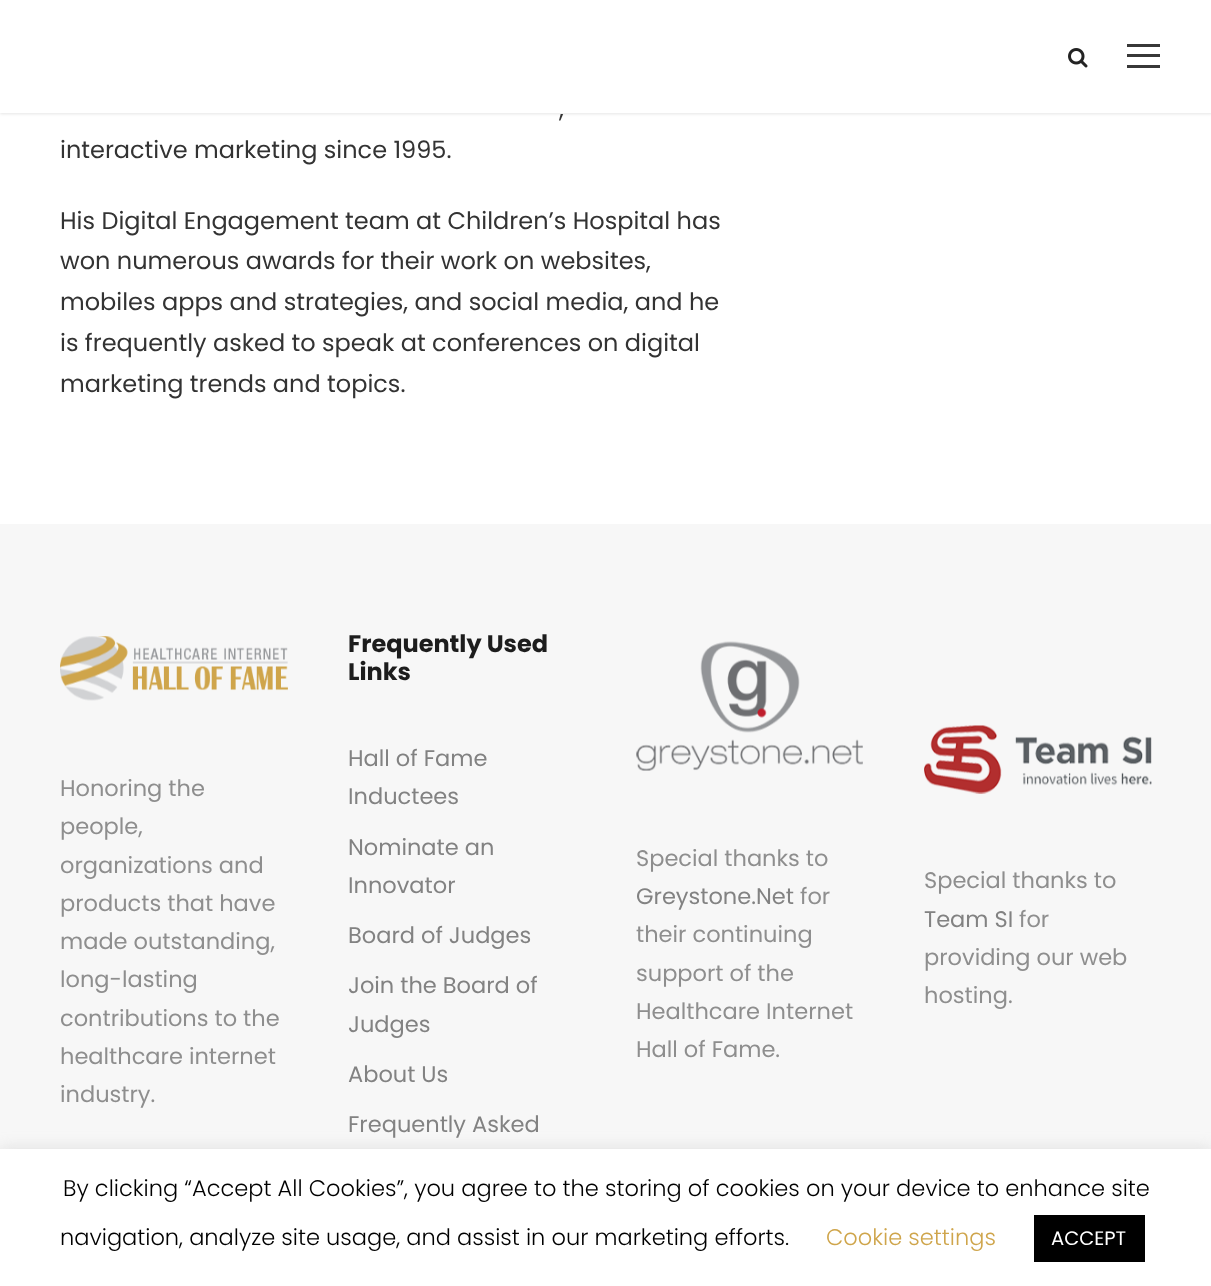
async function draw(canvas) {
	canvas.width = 1211;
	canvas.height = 1286;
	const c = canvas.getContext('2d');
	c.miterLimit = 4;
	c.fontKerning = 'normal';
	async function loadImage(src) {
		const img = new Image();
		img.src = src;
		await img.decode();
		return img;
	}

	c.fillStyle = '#fff';
	c.fillRect(0, 0, 1211, 1286);
	c.fillStyle = '#0000001a';
	c.filter = 'blur(1.5px)';
	c.beginPath();
	c.rect(0, 2, 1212, 112);
	c.fill();
	c.filter = 'none';
	c.fillStyle = '#fff';
	c.fillRect(0, 0, 1211, 113);
	c.drawImage(await loadImage('img1.png'), 1068, 48, 20, 20);
	for (const [x, y, w, h, color] of [
		[1127, 44, 33, 3, '#383838'],
		[1127, 54, 33, 3, '#383838'],
		[1127, 65, 33, 3, '#383838'],
	]) {
		c.fillStyle = color;
		c.fillRect(x, y, w, h);
	}
	c.font = '24px Poppins';
	c.fillStyle = '#333';
	for (const [text, x, y] of [
		[',', 559, 117],
		['interactive marketing since 1995.', 60, 158],
		['His Digital Engagement team at Children’s Hospital has', 60, 229],
		['won numerous awards for their work on websites,', 60, 269],
		['mobiles apps and strategies, and social media, and he', 60, 310],
		['is frequently asked to speak at conferences on digital', 60, 351],
		['marketing trends and topics.', 60, 392],
	]) {
		c.fillText(text, x, y);
	}
	c.fillStyle = '#f7f7f7';
	c.fillRect(0, 524, 1211, 625);
	c.drawImage(await loadImage('img2.png'), 60, 636, 228, 65);
	c.font = '22.5px Poppins';
	c.fillStyle = '#8e8e8e';
	for (const [text, x, y] of [
		['Honoring the', 60, 796],
		['people,', 60, 834],
		['organizations and', 60, 873],
		['products that have', 60, 911],
		['made outstanding,', 60, 949],
		['long-lasting', 60, 987],
		['contributions to the', 60, 1026],
		['healthcare internet', 60, 1064],
		['industry.', 60, 1102],
	]) {
		c.fillText(text, x, y);
	}
	c.font = 'bold 24px Poppins';
	c.fillStyle = '#1d1d1d';
	c.fillText('Frequently Used', 348, 652);
	c.fillText('Links', 348, 680);
	c.font = '22.5px Poppins';
	c.fillStyle = '#828282';
	for (const [text, x, y] of [
		['Hall of Fame', 348, 766],
		['Inductees', 348, 804],
		['Nominate an', 348, 855],
		['Innovator', 348, 893],
		['Board of Judges', 348, 943],
		['Join the Board of', 348, 993],
		['Judges', 348, 1032],
		['About Us', 348, 1082],
		['Frequently Asked', 348, 1132],
	]) {
		c.fillText(text, x, y);
	}
	c.drawImage(await loadImage('img3.png'), 636, 641, 227, 130);
	c.fillStyle = '#8e8e8e';
	c.fillText('Special thanks to', 636, 866);
	c.fillStyle = '#828282';
	c.fillText('Greystone.Net', 636, 904);
	c.fillStyle = '#8e8e8e';
	for (const [text, x, y] of [
		['for', 800, 904],
		['their continuing', 636, 942],
		['support of the', 636, 981],
		['Healthcare Internet', 636, 1019],
		['Hall of Fame.', 636, 1057],
	]) {
		c.fillText(text, x, y);
	}
	c.drawImage(await loadImage('img4.png'), 924, 725, 228, 69);
	c.fillText('Special thanks to', 924, 888);
	c.fillStyle = '#828282';
	c.fillText('Team SI', 924, 927);
	c.fillStyle = '#8e8e8e';
	for (const [text, x, y] of [
		['for', 1019, 927],
		['providing our web', 924, 965],
		['hosting.', 924, 1003],
	]) {
		c.fillText(text, x, y);
	}
	c.fillStyle = '#acabab4d';
	c.filter = 'blur(7.5px)';
	c.beginPath();
	c.rect(0, 1148, 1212, 138);
	c.fill();
	c.filter = 'none';
	c.fillStyle = '#fff';
	c.fillRect(0, 1149, 1211, 137);
	c.font = '300 22.5px Poppins';
	c.fillStyle = '#000';
	c.fillText('By clicking “Accept All Cookies”, you agree to the storing of cookies on your device to enhance site', 63, 1196);
	c.fillText('navigation, analyze site usage, and assist in our marketing efforts.', 60, 1245);
	c.fillStyle = '#cfa54b';
	c.fillText('Cookie settings', 826, 1245);
	c.fillStyle = '#000';
	c.fillRect(1034, 1215, 111, 47);
	c.font = '19.5px Poppins';
	c.fillStyle = '#fff';
	c.fillText('ACCEPT', 1051, 1245);
}

draw(document.querySelector('canvas'));
